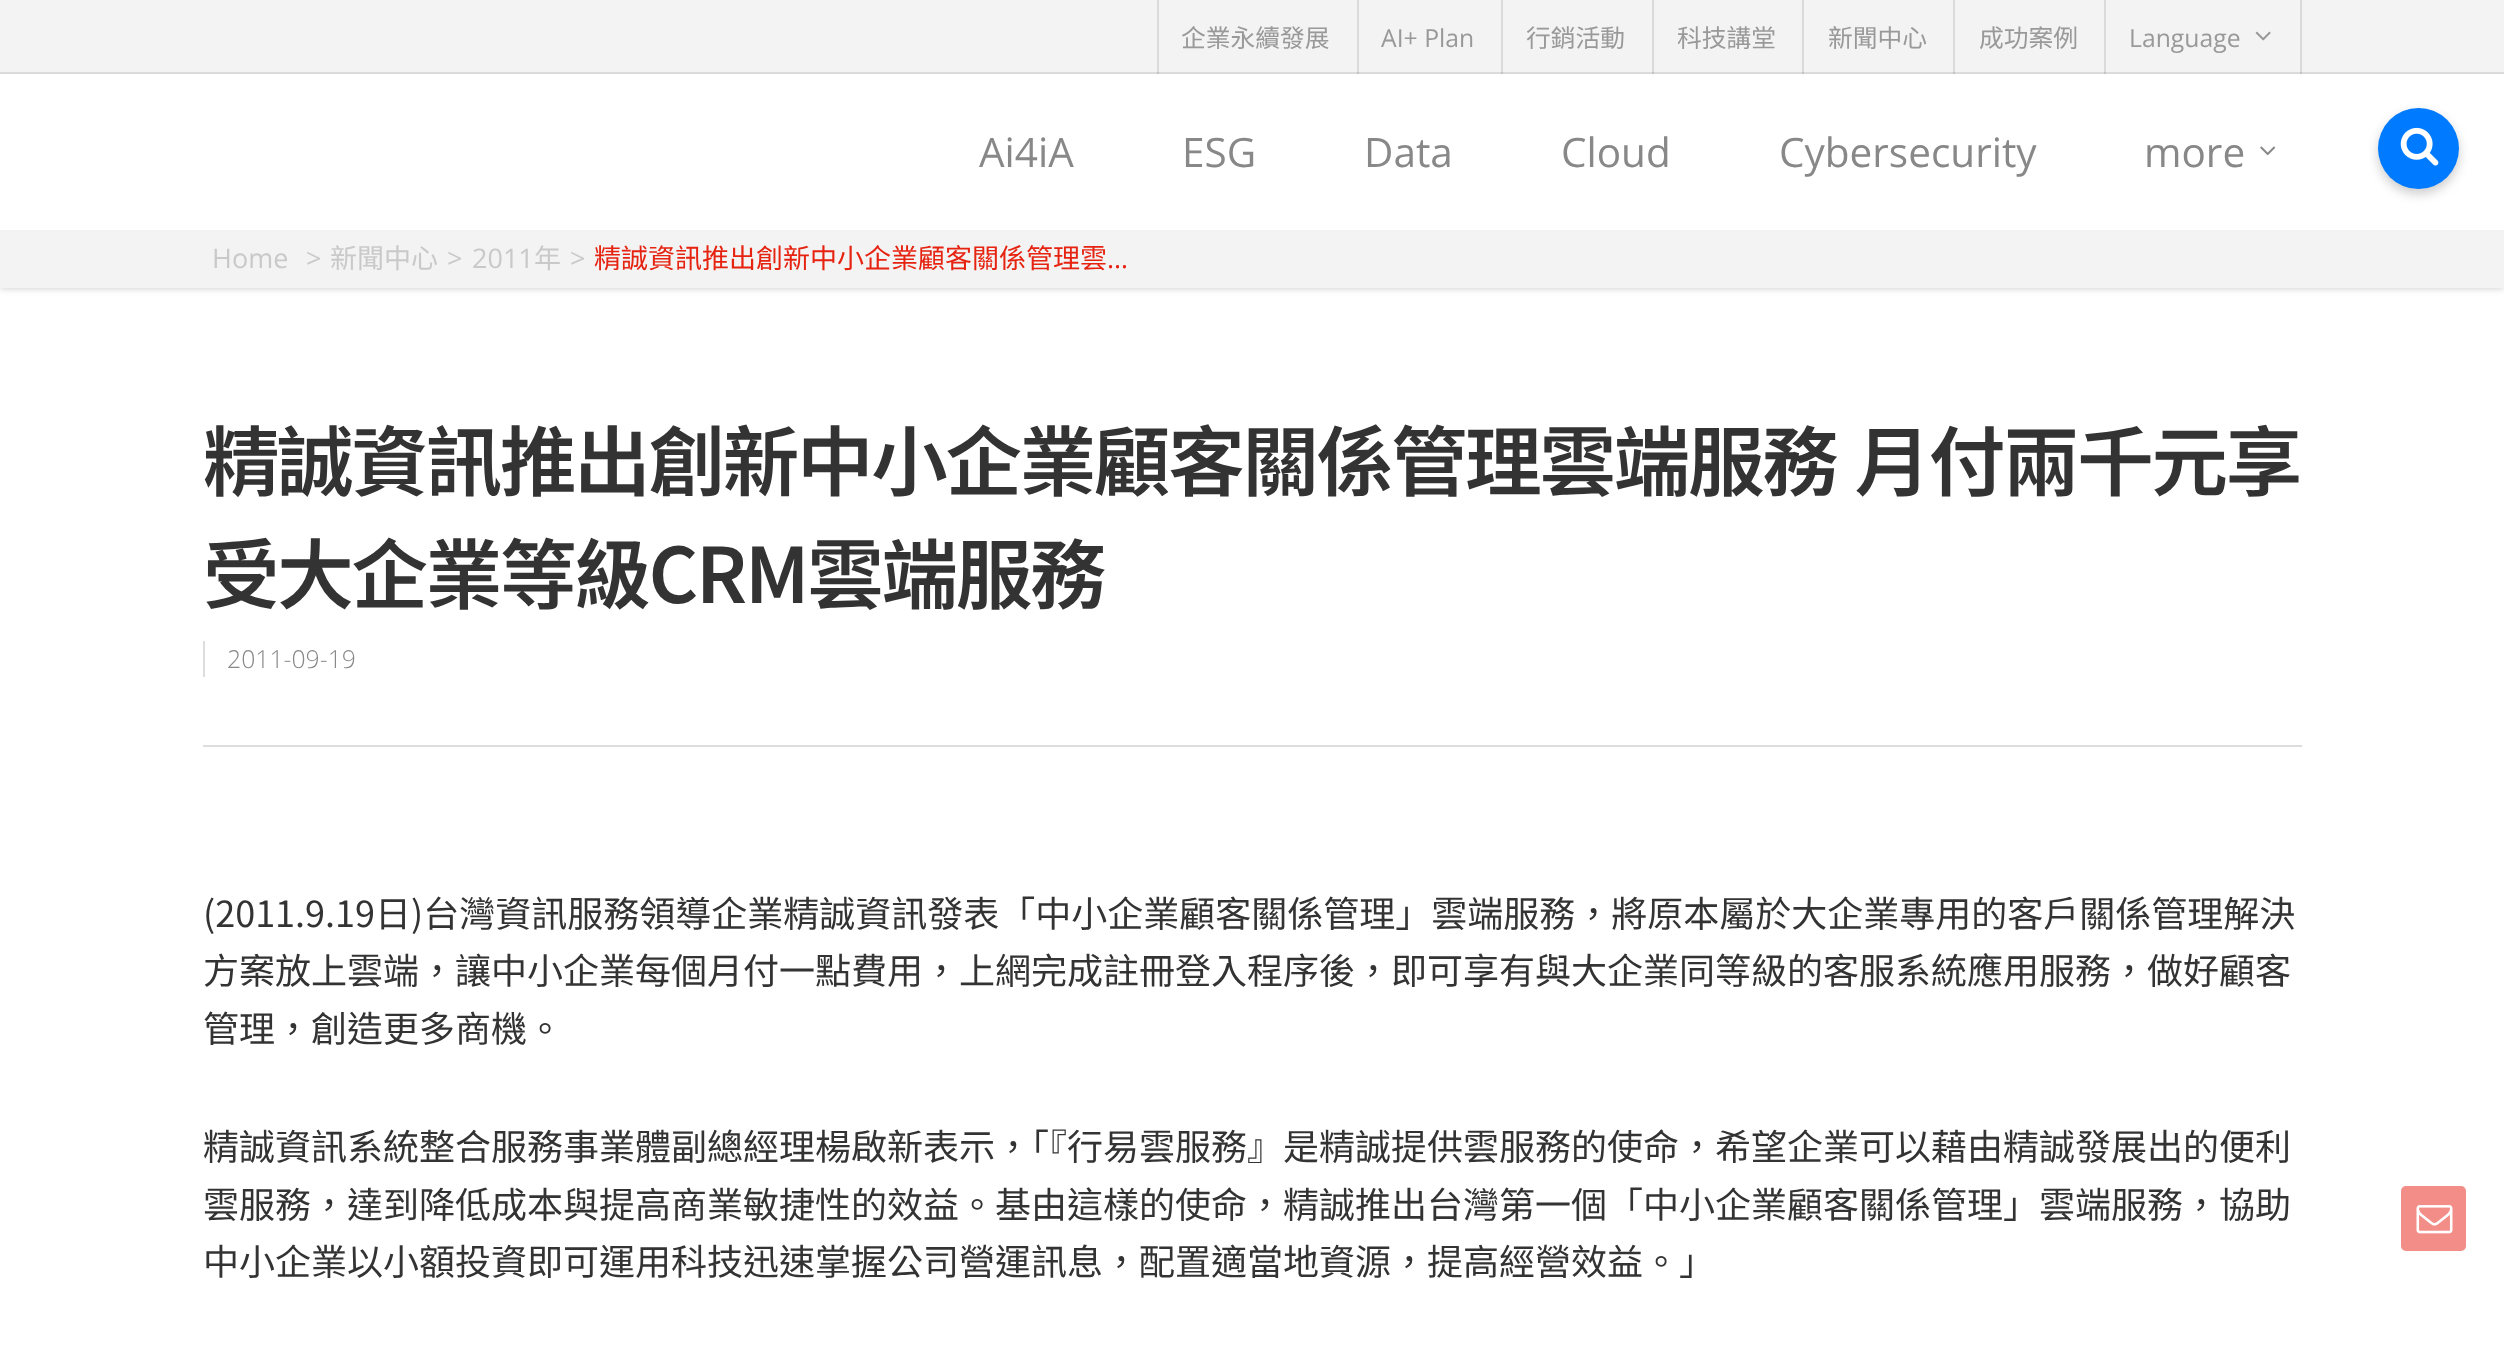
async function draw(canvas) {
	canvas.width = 2504;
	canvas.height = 1362;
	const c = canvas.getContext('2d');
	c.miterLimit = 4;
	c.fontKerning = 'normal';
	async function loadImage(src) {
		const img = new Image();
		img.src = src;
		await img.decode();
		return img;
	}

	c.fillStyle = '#fff';
	c.fillRect(0, 0, 2504, 1362);
	c.fillStyle = '#00000038';
	c.filter = 'blur(3.5px)';
	c.beginPath();
	c.rect(0, 74, 2504, 214);
	c.fill();
	c.filter = 'none';
	for (const [x, y, w, h, color] of [
		[0, 0, 2504, 72, '#f3f3f3'],
		[0, 72, 2504, 2, '#dbdbdb'],
		[1157, 0, 2, 74, '#0000001a'],
	]) {
		c.fillStyle = color;
		c.fillRect(x, y, w, h);
	}
	c.font = '24.75px Noto Sans TC';
	c.fillStyle = '#999';
	c.fillText('企業永續發展', 1181, 47);
	c.fillStyle = '#0000001a';
	c.fillRect(1357, 0, 2, 74);
	c.font = '24.75px Open Sans';
	c.fillStyle = '#999';
	c.fillText('AI+ Plan', 1381, 47);
	c.fillStyle = '#0000001a';
	c.fillRect(1501, 0, 2, 74);
	c.font = '24.75px Noto Sans TC';
	c.fillStyle = '#999';
	c.fillText('行銷活動', 1526, 47);
	c.fillStyle = '#0000001a';
	c.fillRect(1652, 0, 2, 74);
	c.fillStyle = '#999';
	c.fillText('科技講堂', 1677, 47);
	c.fillStyle = '#0000001a';
	c.fillRect(1802, 0, 2, 74);
	c.fillStyle = '#999';
	c.fillText('新聞中心', 1828, 47);
	c.fillStyle = '#0000001a';
	c.fillRect(1953, 0, 2, 74);
	c.fillStyle = '#999';
	c.fillText('成功案例', 1979, 47);
	c.fillStyle = '#0000001a';
	c.fillRect(2300, 0, 2, 74);
	c.fillRect(2104, 0, 2, 74);
	c.font = '24.75px Open Sans';
	c.fillStyle = '#999';
	c.fillText('Language', 2129, 47);
	c.drawImage(await loadImage('img1.png'), 2255, 31, 16, 10);
	c.fillStyle = '#fff';
	c.fillRect(0, 74, 2504, 156);
	c.font = '40.5px Open Sans';
	c.fillStyle = '#888';
	for (const [text, x, y] of [
		['Ai4iA', 979, 167],
		['ESG', 1182, 167],
		['Data', 1364, 167],
		['Cloud', 1561, 167],
		['Cybersecurity', 1779, 167],
		['more', 2144, 167],
	]) {
		c.fillText(text, x, y);
	}
	c.drawImage(await loadImage('img2.png'), 2260, 146, 16, 10);
	c.fillStyle = '#f3f3f3';
	c.fillRect(0, 230, 2504, 58);
	c.font = '27px Open Sans';
	c.fillStyle = '#c9c9c9';
	c.fillText('Home', 212, 268);
	c.fillText('>', 306, 268);
	c.font = '27px Noto Sans TC';
	c.fillText('新聞中心', 330, 268);
	c.font = '27px Open Sans';
	c.fillText('>', 447, 268);
	c.fillText('2011', 472, 268);
	c.font = '27px Noto Sans TC';
	c.fillText('年', 534, 268);
	c.font = '27px Open Sans';
	c.fillText('>', 570, 268);
	c.font = '27px Noto Sans TC';
	c.fillStyle = '#e62310';
	c.fillText('精誠資訊推出創新中小企業顧客關係管理雲', 594, 268);
	c.font = '27px Open Sans';
	c.fillText('…', 1107, 268);
	c.fillStyle = '#00000033';
	c.filter = 'blur(5.5px)';
	c.beginPath();
	c.roundRect(2378, 113, 81, 81, 40.5);
	c.fill();
	c.filter = 'none';
	c.fillStyle = '#007bff';
	c.beginPath();
	c.arc(2418.5, 148.5, 40.5, 0, 2 * Math.PI);
	c.fill();
	c.drawImage(await loadImage('img3.png'), 2400, 127, 39, 39);
	c.fillStyle = '#ddd';
	c.fillRect(203, 745, 2099, 2);
	c.letterSpacing = '-2.25px';
	c.wordSpacing = '3px';
	c.font = '600 76.5px Noto Sans TC';
	c.fillStyle = '#333';
	c.fillText('精誠資訊推出創新中小企業顧客關係管理雲端服務 月付兩千元享', 203, 490);
	c.wordSpacing = '0px';
	c.fillText('受大企業等級CRM雲端服務', 203, 603);
	c.fillStyle = '#ddd';
	c.fillRect(203, 641, 2, 36);
	c.letterSpacing = '0px';
	c.font = '300 24.75px Open Sans';
	c.fillStyle = '#888';
	c.fillText('2011-09-19', 227, 668);
	c.font = '36px Noto Sans TC';
	c.fillStyle = '#333';
	for (const [text, x, y] of [
		['(2011.9.19日)台灣資訊服務領導企業精誠資訊發表「中小企業顧客關係管理」雲端服務，將原本屬於大企業專用的客戶關係管理解決', 203, 927],
		['方案放上雲端，讓中小企業每個月付一點費用，上網完成註冊登入程序後，即可享有與大企業同等級的客服系統應用服務，做好顧客', 203, 984],
		['管理，創造更多商機。', 203, 1042],
		['精誠資訊系統整合服務事業體副總經理楊啟新表示，「『行易雲服務』是精誠提供雲服務的使命，希望企業可以藉由精誠發展出的便利', 203, 1160],
		['雲服務，達到降低成本與提高商業敏捷性的效益。基由這樣的使命，精誠推出台灣第一個「中小企業顧客關係管理」雲端服務，協助', 203, 1218],
		['中小企業以小額投資即可運用科技迅速掌握公司營運訊息，配置適當地資源，提高經營效益。」', 203, 1275],
	]) {
		c.fillText(text, x, y);
	}
	c.fillStyle = '#f38d87';
	c.beginPath();
	c.roundRect(2401, 1186, 65, 65, 5);
	c.fill();
	c.drawImage(await loadImage('img4.png'), 2416, 1205, 37, 29);
}

draw(document.querySelector('canvas'));
